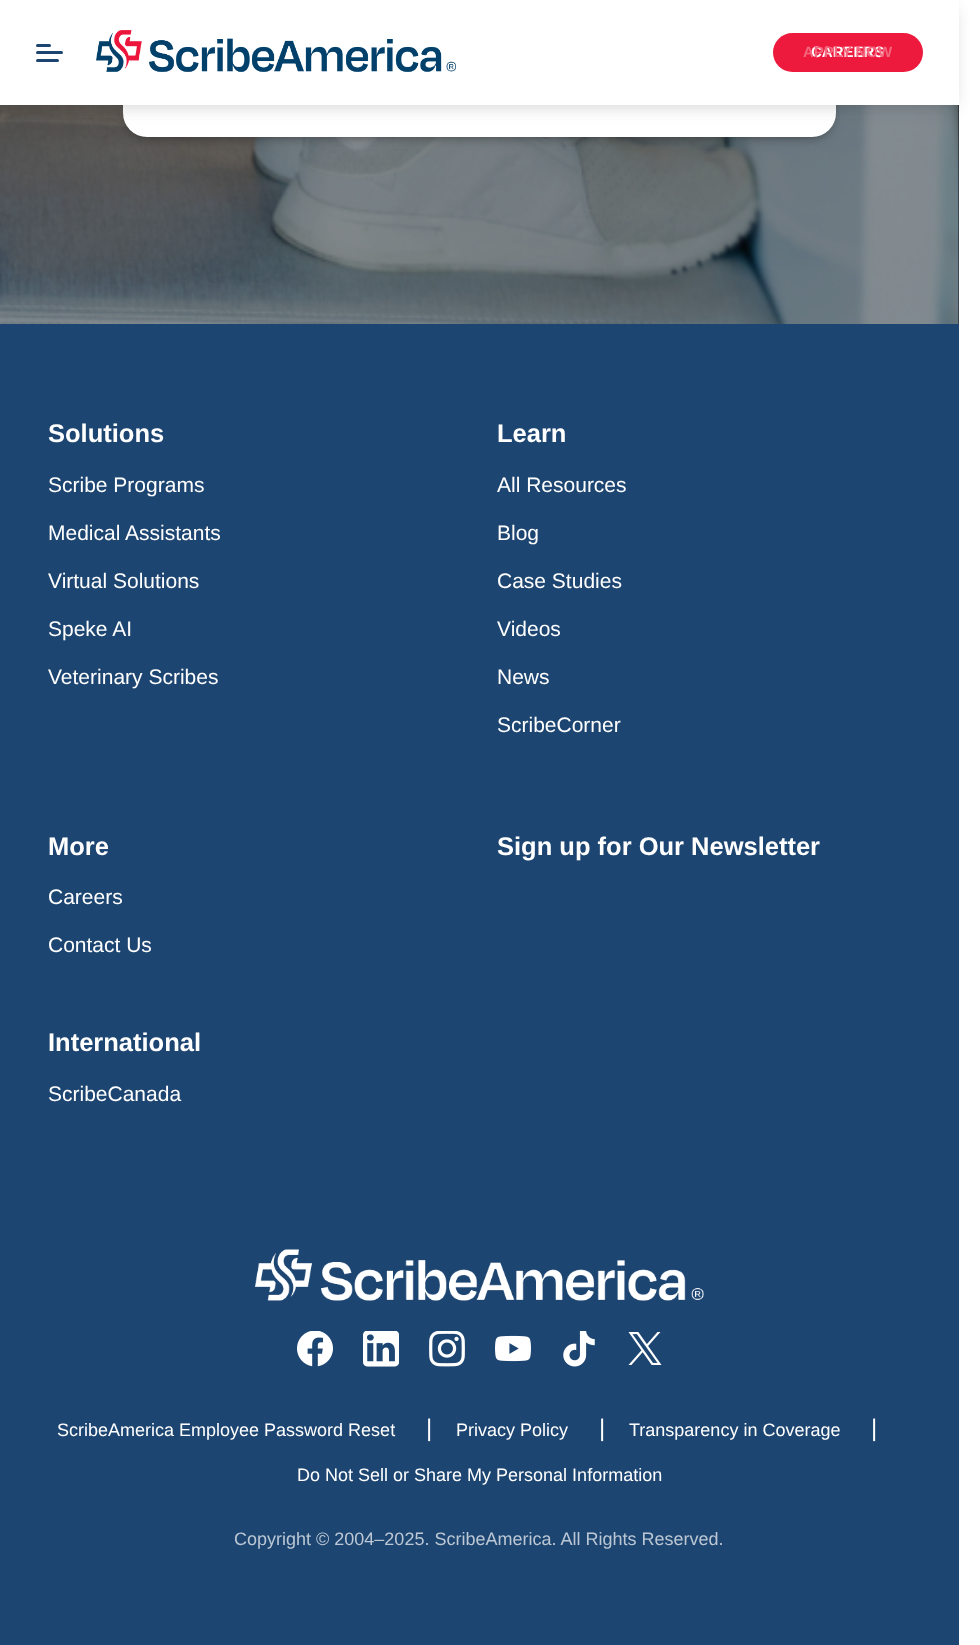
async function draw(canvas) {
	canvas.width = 980;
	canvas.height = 1645;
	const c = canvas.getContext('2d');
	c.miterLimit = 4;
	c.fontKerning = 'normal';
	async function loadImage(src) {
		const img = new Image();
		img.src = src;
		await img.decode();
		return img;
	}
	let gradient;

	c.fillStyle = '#fff';
	c.fillRect(0, 0, 980, 1645);
	gradient = c.createLinearGradient(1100, 183, -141, -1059);
	gradient.addColorStop(0, '#070e25');
	gradient.addColorStop(1, '#112944');
	c.fillStyle = gradient;
	c.fillRect(958, 105, 1, 219);
	c.drawImage(await loadImage('img1.png'), 0, 105, 959, 219);
	c.fillStyle = '#0000004d';
	c.filter = 'blur(4px)';
	c.beginPath();
	c.roundRect(129, -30, 701, 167, 18);
	c.fill();
	c.filter = 'none';
	c.fillStyle = '#3232324d';
	c.filter = 'blur(6px)';
	c.beginPath();
	c.roundRect(125, -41, 709, 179, 23);
	c.fill();
	c.filter = 'none';
	c.fillStyle = '#fff';
	c.beginPath();
	c.roundRect(123, -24, 713, 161, 24);
	c.fill();
	c.fillStyle = '#0000001a';
	c.filter = 'blur(7.5px)';
	c.beginPath();
	c.rect(5, 6, 949, 96);
	c.fill();
	c.filter = 'none';
	c.fillStyle = '#2828321a';
	c.filter = 'blur(7.5px)';
	c.beginPath();
	c.rect(3, 11, 953, 99);
	c.fill();
	c.filter = 'none';
	c.fillStyle = '#fff';
	c.fillRect(0, 0, 959, 105);
	c.fillStyle = '#1d4571';
	c.beginPath();
	c.roundRect(36, 44, 15, 3, 1.5);
	c.fill();
	c.beginPath();
	c.roundRect(36, 51, 27, 3, 1.5);
	c.fill();
	c.beginPath();
	c.roundRect(36, 59, 23, 3, 1.5);
	c.fill();
	c.drawImage(await loadImage('img2.png'), 96, 30, 360, 42);
	c.fillStyle = '#ed1a3d';
	c.beginPath();
	c.roundRect(773, 33, 150, 39, 19.5);
	c.fill();
	c.font = 'bold 15px Liberation Sans';
	c.fillStyle = '#fff';
	c.fillText('CAREERS', 811, 57);
	c.fillStyle = '#f3687f';
	c.fillText('APPLY NOW', 803, 57);
	c.fillStyle = '#1d4571';
	c.fillRect(0, 324, 959, 1321);
	c.font = 'bold 25.5px Liberation Sans';
	c.fillStyle = '#fff';
	c.fillText('Solutions', 48, 442);
	c.font = '21px Liberation Sans';
	for (const [text, x, y] of [
		['Scribe Programs', 48, 492],
		['Medical Assistants', 48, 540],
		['Virtual Solutions', 48, 588],
		['Speke AI', 48, 636],
		['Veterinary Scribes', 48, 684],
	]) {
		c.fillText(text, x, y);
	}
	c.font = 'bold 25.5px Liberation Sans';
	c.fillText('Learn', 497, 442);
	c.font = '21px Liberation Sans';
	for (const [text, x, y] of [
		['All Resources', 497, 492],
		['Blog', 497, 540],
		['Case Studies', 497, 588],
		['Videos', 497, 636],
		['News', 497, 684],
		['ScribeCorner', 497, 732],
	]) {
		c.fillText(text, x, y);
	}
	c.font = 'bold 25.5px Liberation Sans';
	c.fillText('More', 48, 855);
	c.font = '21px Liberation Sans';
	c.fillText('Careers', 48, 904);
	c.fillText('Contact Us', 48, 952);
	c.font = 'bold 25.5px Liberation Sans';
	c.fillText('International', 48, 1051);
	c.font = '21px Liberation Sans';
	c.fillText('ScribeCanada', 48, 1101);
	c.font = 'bold 25.5px Liberation Sans';
	c.fillText('Sign up for Our Newsletter', 497, 855);
	c.drawImage(await loadImage('img3.png'), 255, 1249, 449, 52);
	c.drawImage(await loadImage('img4.png'), 297, 1331, 36, 36);
	c.drawImage(await loadImage('img5.png'), 363, 1331, 36, 36);
	c.drawImage(await loadImage('img6.png'), 429, 1331, 36, 36);
	c.drawImage(await loadImage('img7.png'), 495, 1335, 36, 27);
	c.drawImage(await loadImage('img8.png'), 563, 1331, 32, 36);
	c.drawImage(await loadImage('img9.png'), 628, 1332, 34, 33);
	c.font = '18px Liberation Sans';
	c.fillText('ScribeAmerica Employee Password Reset', 57, 1436);
	c.font = '24px Liberation Sans';
	c.fillText('|', 426, 1436);
	c.font = '18px Liberation Sans';
	c.fillText('Privacy Policy', 456, 1436);
	c.font = '24px Liberation Sans';
	c.fillText('|', 599, 1436);
	c.font = '18px Liberation Sans';
	c.fillText('Transparency in Coverage', 629, 1436);
	c.font = '24px Liberation Sans';
	c.fillText('|', 871, 1436);
	c.font = '18px Liberation Sans';
	c.fillText('Do Not Sell or Share My Personal Information', 297, 1481);
	c.fillStyle = '#bbc7d4';
	c.fillText('Copyright © 2004–2025. ScribeAmerica. All Rights Reserved.', 234, 1545);
}

draw(document.querySelector('canvas'));
